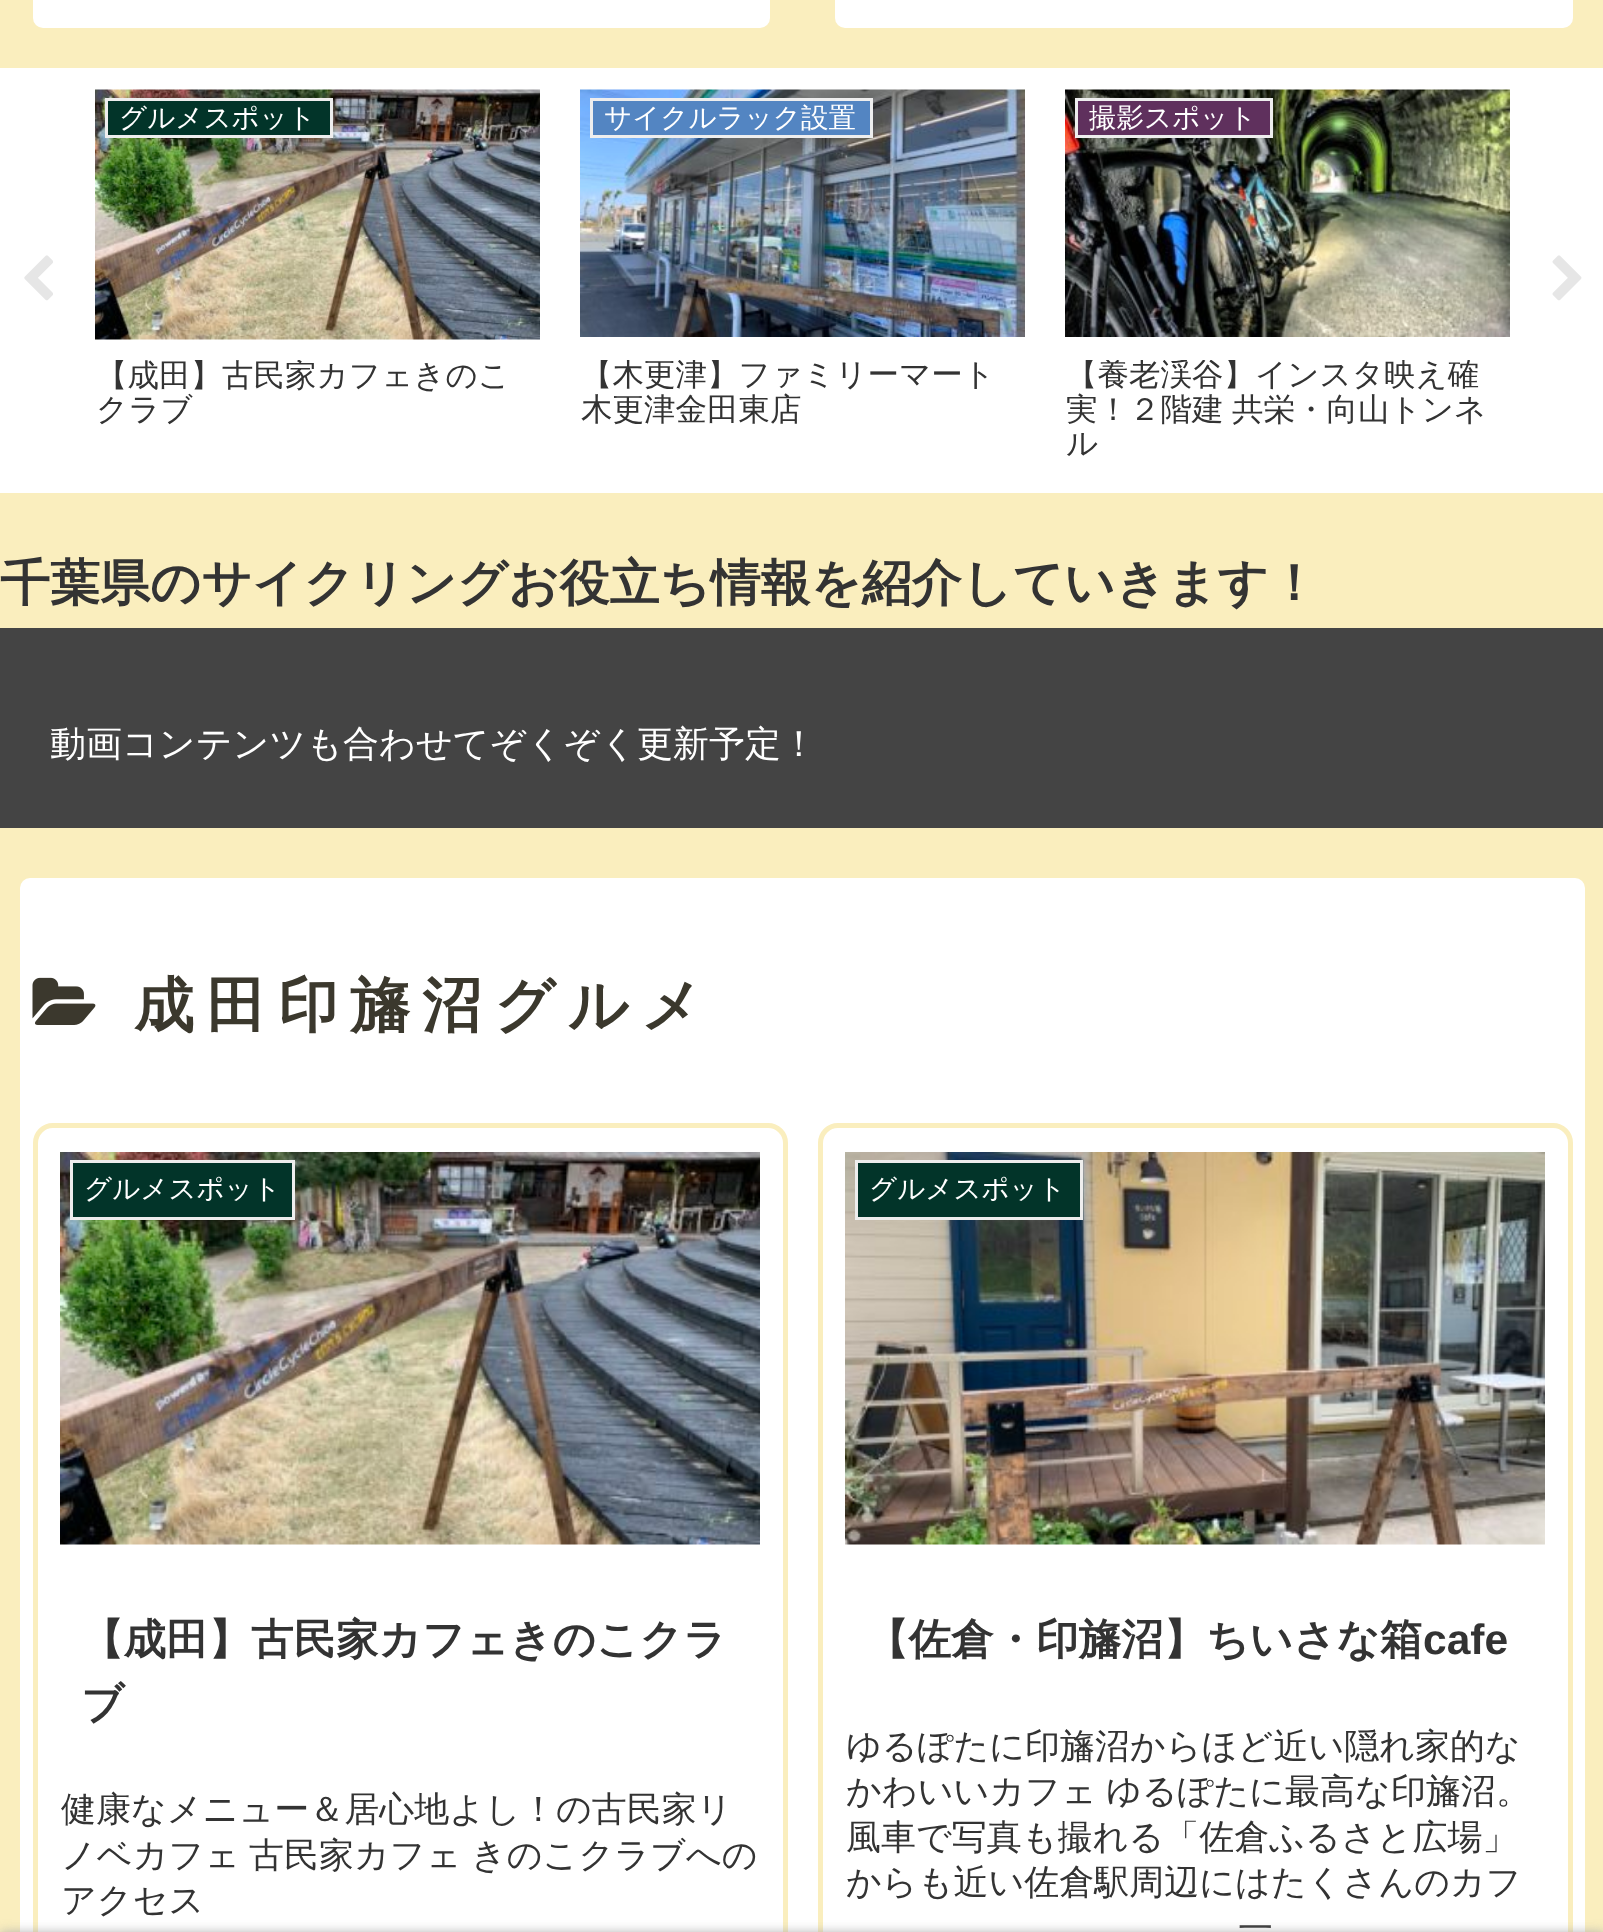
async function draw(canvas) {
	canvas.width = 1603;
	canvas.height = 1932;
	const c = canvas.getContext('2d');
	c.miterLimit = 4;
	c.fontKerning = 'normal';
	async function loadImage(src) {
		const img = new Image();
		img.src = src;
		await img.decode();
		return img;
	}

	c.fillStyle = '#faeebe';
	c.fillRect(0, 0, 1603, 1932);
	c.fillStyle = '#fff';
	c.beginPath();
	c.roundRect(33, -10, 737, 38, 10);
	c.fill();
	c.beginPath();
	c.roundRect(835, -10, 738, 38, 10);
	c.fill();
	c.fillRect(0, 68, 1603, 425);
	c.drawImage(await loadImage('img1.png'), 24, 255, 29, 46);
	c.drawImage(await loadImage('img2.png'), 95, 89, 445, 251);
	c.fillStyle = '#023429';
	c.beginPath();
	c.rect(106.5, 99.5, 225, 37);
	c.fill();
	c.strokeStyle = '#eee';
	c.lineWidth = 3;
	c.stroke();
	c.font = '500 27.5px WenQuanYi Zen Hei';
	c.fillStyle = '#fff';
	c.fillText('グルメスポット', 119, 127);
	c.save();
	c.beginPath();
	c.rect(95, 360, 445, 70);
	c.clip();
	c.font = '500 31.5px WenQuanYi Zen Hei';
	c.fillStyle = '#333';
	c.fillText('【成田】古民家カフェきのこ', 96, 386);
	c.restore();
	c.font = '500 31.5px WenQuanYi Zen Hei';
	c.fillStyle = '#333';
	c.fillText('クラブ', 96, 420);
	c.drawImage(await loadImage('img3.png'), 580, 89, 445, 248);
	c.fillStyle = '#5385c2';
	c.beginPath();
	c.rect(591.5, 99.5, 280, 37);
	c.fill();
	c.stroke();
	c.font = '500 27.5px WenQuanYi Zen Hei';
	c.fillStyle = '#fff';
	c.fillText('サイクルラック設置', 604, 127);
	c.save();
	c.beginPath();
	c.rect(580, 360, 445, 70);
	c.clip();
	c.font = '500 31.5px WenQuanYi Zen Hei';
	c.fillStyle = '#333';
	c.fillText('【木更津】ファミリーマート', 581, 385);
	c.restore();
	c.font = '500 31.5px WenQuanYi Zen Hei';
	c.fillStyle = '#333';
	c.fillText('木更津金田東店', 581, 420);
	c.drawImage(await loadImage('img4.png'), 1065, 89, 445, 248);
	c.fillStyle = '#5f305d';
	c.beginPath();
	c.rect(1076.5, 99.5, 195, 37);
	c.fill();
	c.stroke();
	c.font = '500 27.5px WenQuanYi Zen Hei';
	c.fillStyle = '#fff';
	c.fillText('撮影スポット', 1089, 127);
	c.save();
	c.beginPath();
	c.rect(1065, 360, 445, 100);
	c.clip();
	c.font = '500 31.5px WenQuanYi Zen Hei';
	c.fillStyle = '#333';
	c.fillText('【養老渓谷】インスタ映え確', 1066, 385);
	c.restore();
	c.wordSpacing = '-1px';
	c.font = '500 31.5px WenQuanYi Zen Hei';
	c.fillStyle = '#333';
	c.fillText('実！２階建 共栄・向山トンネ', 1066, 420);
	c.wordSpacing = '0px';
	c.fillText('ル', 1066, 454);
	c.drawImage(await loadImage('img5.png'), 1552, 255, 30, 46);
	c.font = 'bold 50px WenQuanYi Zen Hei';
	c.fillText('千葉県のサイクリングお役立ち情報を紹介していきます！', 0, 600);
	c.fillStyle = '#444';
	c.fillRect(0, 628, 1603, 200);
	c.font = '500 36px WenQuanYi Zen Hei';
	c.fillStyle = '#fff';
	c.fillText('動画コンテンツも合わせてぞくぞく更新予定！', 50, 756);
	c.beginPath();
	c.roundRect(20, 878, 1565, 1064, 10);
	c.fill();
	c.drawImage(await loadImage('img6.png'), 32, 977, 64, 48);
	c.letterSpacing = '12px';
	c.font = 'bold 60px WenQuanYi Zen Hei';
	c.fillStyle = '#3b382d';
	c.fillText('成田印旛沼グルメ', 134, 1026);
	c.beginPath();
	c.roundRect(35.5, 1125.5, 750, 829, 17.5);
	c.strokeStyle = '#faeebe';
	c.lineWidth = 5;
	c.stroke();
	c.drawImage(await loadImage('img7.png'), 60, 1152, 700, 393);
	c.fillStyle = '#023429';
	c.beginPath();
	c.rect(71.5, 1161.5, 222, 57);
	c.fill();
	c.strokeStyle = '#eee';
	c.lineWidth = 3;
	c.stroke();
	c.letterSpacing = '0px';
	c.font = '500 27.5px WenQuanYi Zen Hei';
	c.fillStyle = '#fff';
	c.fillText('グルメスポット', 84, 1198);
	c.font = 'bold 42.5px WenQuanYi Zen Hei';
	c.fillStyle = '#333';
	c.fillText('【成田】古民家カフェきのこクラ', 81, 1654);
	c.fillText('ブ', 81, 1718);
	c.font = '500 35px WenQuanYi Zen Hei';
	c.fillText('健康なメニュー＆居心地よし！の古民家リ', 61, 1821);
	c.fillText('ノベカフェ', 61, 1867);
	c.wordSpacing = '-1px';
	c.fillText('古民家カフェ きのこクラブへの', 249, 1867);
	c.wordSpacing = '0px';
	c.fillText('アクセス', 61, 1912);
	c.beginPath();
	c.roundRect(820.5, 1125.5, 750, 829, 17.5);
	c.strokeStyle = '#faeebe';
	c.lineWidth = 5;
	c.stroke();
	c.drawImage(await loadImage('img8.png'), 845, 1152, 700, 393);
	c.fillStyle = '#023429';
	c.beginPath();
	c.rect(856.5, 1161.5, 225, 57);
	c.fill();
	c.strokeStyle = '#eee';
	c.lineWidth = 3;
	c.stroke();
	c.font = '500 27.5px WenQuanYi Zen Hei';
	c.fillStyle = '#fff';
	c.fillText('グルメスポット', 869, 1198);
	c.font = 'bold 42.5px WenQuanYi Zen Hei';
	c.fillStyle = '#333';
	c.fillText('【佐倉・印旛沼】ちいさな箱', 866, 1654);
	c.font = 'bold 42.5px Liberation Sans';
	c.fillText('cafe', 1423, 1654);
	c.font = '500 35px WenQuanYi Zen Hei';
	for (const [text, x, y] of [
		['ゆるぽたに印旛沼からほど近い隠れ家的な', 846, 1758],
		['かわいいカフェ', 846, 1803],
		['ゆるぽたに最高な印旛沼。', 1106, 1803],
		['風車で写真も撮れる「佐倉ふるさと広場」', 846, 1849],
		['からも近い佐倉駅周辺にはたくさんのカフ', 846, 1894],
		['一', 1238, 1940],
	]) {
		c.fillText(text, x, y);
	}
	c.fillStyle = '#a9a9a9';
	c.filter = 'blur(6px)';
	c.beginPath();
	c.rect(0, 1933, 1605, 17);
	c.fill();
	c.filter = 'none';
}

draw(document.querySelector('canvas'));
